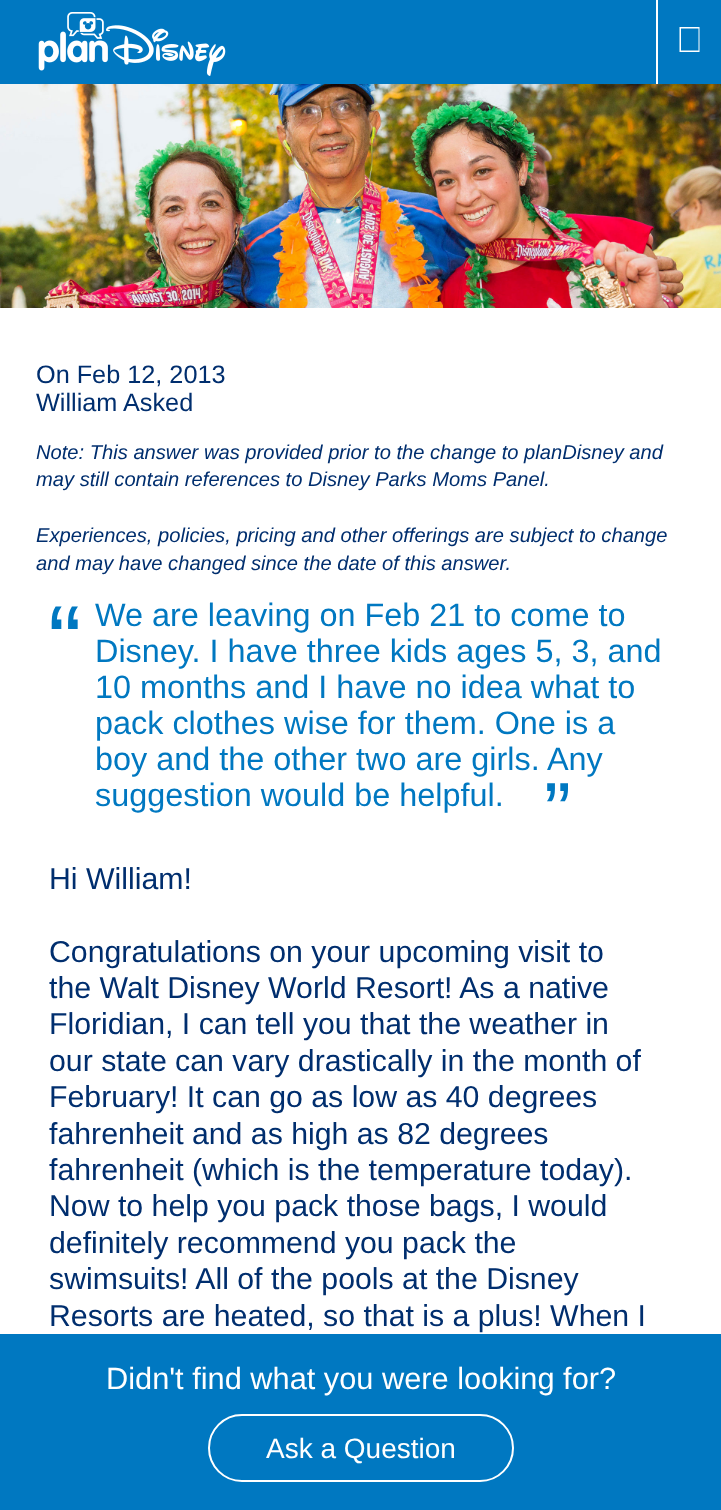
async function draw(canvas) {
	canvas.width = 721;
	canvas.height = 1510;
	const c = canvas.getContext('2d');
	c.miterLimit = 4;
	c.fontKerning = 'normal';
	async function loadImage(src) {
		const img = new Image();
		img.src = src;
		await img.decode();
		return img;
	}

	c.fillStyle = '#fff';
	c.fillRect(0, 0, 721, 1510);
	c.fillStyle = '#0078c1';
	c.fillRect(0, 0, 721, 84);
	c.drawImage(await loadImage('img1.png'), 38, 12, 188, 64);
	c.fillStyle = '#fff';
	c.fillRect(656, 0, 2, 84);
	c.beginPath();
	c.moveTo(679.5, 27);
	c.lineTo(699.5, 27);
	c.lineTo(699.5, 52);
	c.lineTo(679.5, 52);
	c.closePath();
	c.moveTo(681, 28.5);
	c.lineTo(681, 50.5);
	c.lineTo(698.5, 50.5);
	c.lineTo(698.5, 28.5);
	c.closePath();
	c.fill();
	c.drawImage(await loadImage('img2.png'), 0, 84, 721, 224);
	c.font = '25.25px Liberation Sans';
	c.fillStyle = '#002e6e';
	for (const [text, x, y] of [
		['On Feb 12, 2013', 36, 383],
		['William', 36, 411],
		['Asked', 123, 411],
	]) {
		c.fillText(text, x, y);
	}
	c.font = 'italic 20.15px Liberation Sans';
	for (const [text, x, y] of [
		['Note: This answer was provided prior to the change to planDisney and', 36, 459],
		['may still contain references to Disney Parks Moms Panel.', 36, 486],
		['Experiences, policies, pricing and other offerings are subject to change', 36, 542],
		['and may have changed since the date of this answer.', 36, 570],
	]) {
		c.fillText(text, x, y);
	}
	c.font = '101px Liberation Sans';
	c.fillStyle = '#0078c1';
	c.fillText('“', 48, 676);
	c.font = '32.4px Liberation Sans';
	for (const [text, x, y] of [
		['We are leaving on Feb 21 to come to', 95, 626],
		['Disney. I have three kids ages 5, 3, and', 95, 662],
		['10 months and I have no idea what to', 95, 698],
		['pack clothes wise for them. One is a', 95, 734],
		['boy and the other two are girls. Any', 95, 770],
		['suggestion would be helpful.', 95, 806],
	]) {
		c.fillText(text, x, y);
	}
	c.font = '81px Liberation Sans';
	c.fillText('”', 544, 839);
	c.font = '30.25px Liberation Sans';
	c.fillStyle = '#002e6e';
	for (const [text, x, y] of [
		['Hi William!', 49, 889],
		['Congratulations on your upcoming visit to', 49, 962],
		['the Walt Disney World Resort! As a native', 49, 998],
		['Floridian, I can tell you that the weather in', 49, 1034],
		['our state can vary drastically in the month of', 49, 1071],
		['February! It can go as low as 40 degrees', 49, 1107],
		['fahrenheit and as high as 82 degrees', 49, 1144],
		['fahrenheit (which is the temperature today).', 49, 1180],
		['Now to help you pack those bags, I would', 49, 1216],
		['definitely recommend you pack the', 49, 1253],
		['swimsuits! All of the pools at the Disney', 49, 1289],
		['Resorts are heated, so that is a plus! When I', 49, 1326],
	]) {
		c.fillText(text, x, y);
	}
	c.fillStyle = '#0078c1';
	c.fillRect(0, 1334, 721, 176);
	c.font = '30.75px Liberation Sans';
	c.fillStyle = '#fff';
	c.fillText('Didn\'t find what you were looking for?', 106, 1389);
	c.beginPath();
	c.roundRect(209, 1415, 304, 66, 33);
	c.strokeStyle = '#fff';
	c.lineWidth = 2;
	c.stroke();
	c.font = '28px Liberation Sans';
	c.fillText('Ask a Question', 266, 1458);
}

draw(document.querySelector('canvas'));
